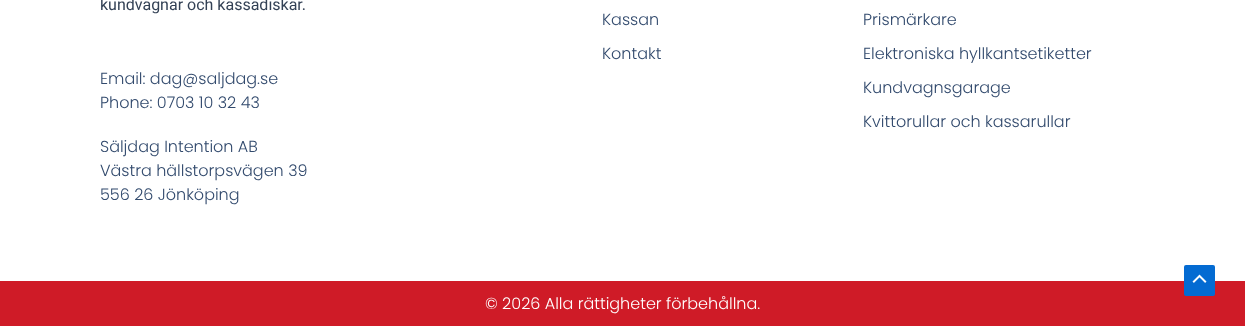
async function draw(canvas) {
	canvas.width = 1245;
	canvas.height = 326;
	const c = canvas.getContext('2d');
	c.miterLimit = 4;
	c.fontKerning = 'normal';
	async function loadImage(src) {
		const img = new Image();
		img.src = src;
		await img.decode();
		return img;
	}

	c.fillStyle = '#fff';
	c.fillRect(0, 0, 1245, 326);
	c.font = '16px Roboto';
	c.fillStyle = '#334155';
	c.fillText('kundvagnar och kassadiskar.', 100, 10);
	c.font = '300 16px Poppins';
	c.fillStyle = '#324a6d';
	for (const [text, x, y] of [
		['Email: dag@saljdag.se', 100, 84],
		['Phone: 0703 10 32 43', 100, 108],
		['Säljdag Intention AB', 100, 152],
		['Västra hällstorpsvägen 39', 100, 176],
		['556 26 Jönköping', 100, 200],
		['Kassan', 602, 25],
		['Kontakt', 602, 59],
		['Prismärkare', 863, 25],
		['Elektroniska hyllkantsetiketter', 863, 59],
		['Kundvagnsgarage', 863, 93],
		['Kvittorullar och kassarullar', 863, 127],
	]) {
		c.fillText(text, x, y);
	}
	c.fillStyle = '#cf1b27';
	c.fillRect(0, 281, 1245, 45);
	c.fillStyle = '#fff';
	c.fillText('© 2026 Alla rättigheter förbehållna.', 485, 309);
	c.fillStyle = '#046bd2';
	c.beginPath();
	c.roundRect(1184, 265, 31, 31, 2);
	c.fill();
	c.drawImage(await loadImage('img1.png'), 1192, 274, 15, 9);
}

draw(document.querySelector('canvas'));
